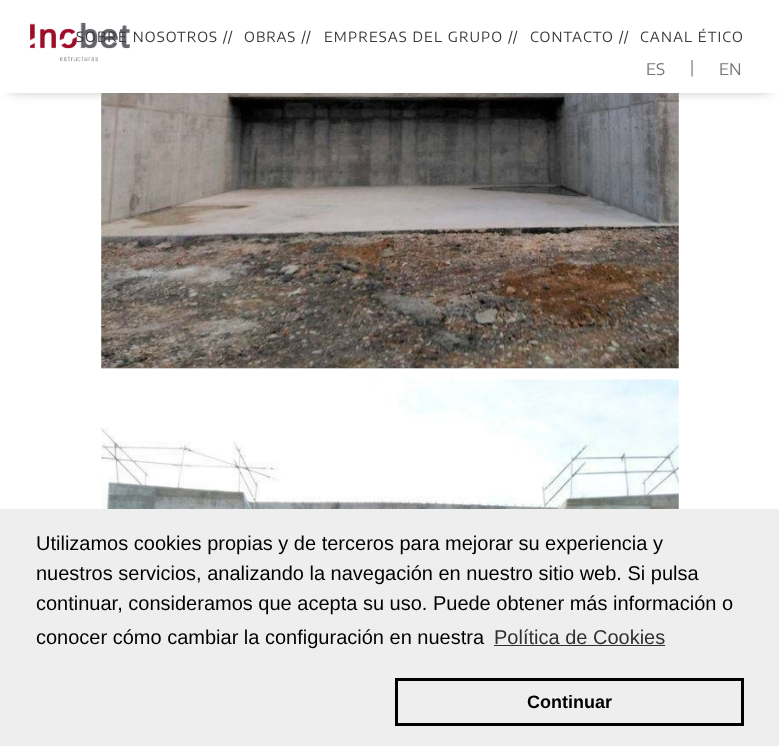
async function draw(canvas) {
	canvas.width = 779;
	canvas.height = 746;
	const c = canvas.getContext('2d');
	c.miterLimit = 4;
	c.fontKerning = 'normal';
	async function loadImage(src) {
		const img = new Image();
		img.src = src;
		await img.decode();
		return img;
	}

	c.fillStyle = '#fff';
	c.fillRect(0, 0, 779, 746);
	c.fillStyle = '#ededed';
	c.fillRect(101, 93, 578, 276);
	c.drawImage(await loadImage('img2.png'), 101, 93, 578, 276);
	c.fillStyle = '#808080';
	c.filter = 'blur(7px)';
	c.beginPath();
	c.rect(10, 15, 760, 73);
	c.fill();
	c.filter = 'none';
	c.fillStyle = '#fff';
	c.fillRect(0, 1, 779, 92);
	c.drawImage(await loadImage('img1.png'), 30, 22, 100, 40);
	c.letterSpacing = '1.1px';
	c.font = '14px Encode Sans Semi Expanded';
	c.fillStyle = '#383838';
	for (const [text, x, y] of [
		['SOBRE NOSOTROS //', 76, 42],
		['OBRAS //', 244, 42],
		['EMPRESAS DEL GRUPO //', 324, 42],
		['CONTACTO //', 530, 42],
		['CANAL ÉTICO', 640, 42],
	]) {
		c.fillText(text, x, y);
	}
	c.letterSpacing = '0px';
	c.font = '16px Encode Sans Semi Expanded';
	c.fillStyle = '#757575';
	c.fillText('ES', 646, 75);
	c.fillStyle = '#808080';
	c.fillText('|', 690, 73);
	c.fillStyle = '#757575';
	c.fillText('EN', 719, 75);
	c.drawImage(await loadImage('img3.png'), 101, 379, 578, 130);
	c.fillStyle = '#eee';
	c.fillRect(0, 509, 779, 237);
	c.font = '20px Liberation Sans';
	c.fillStyle = '#000';
	for (const [text, x, y] of [
		['Utilizamos cookies propias y de terceros para mejorar su experiencia y', 36, 550],
		['nuestros servicios, analizando la navegación en nuestro sitio web. Si pulsa', 36, 580],
		['continuar, consideramos que acepta su uso. Puede obtener más información o', 36, 610],
		['conocer cómo cambiar la configuración en nuestra', 36, 644],
	]) {
		c.fillText(text, x, y);
	}
	c.fillStyle = '#303030';
	c.fillText('Política de Cookies', 494, 644);
	c.fillRect(494, 645, 171, 1);
	c.strokeStyle = '#000';
	c.lineWidth = 3;
	c.strokeRect(396.5, 679.5, 346, 45);
	c.font = 'bold 18px Liberation Sans';
	c.fillStyle = '#000';
	c.fillText('Continuar', 527, 708);
}

draw(document.querySelector('canvas'));
